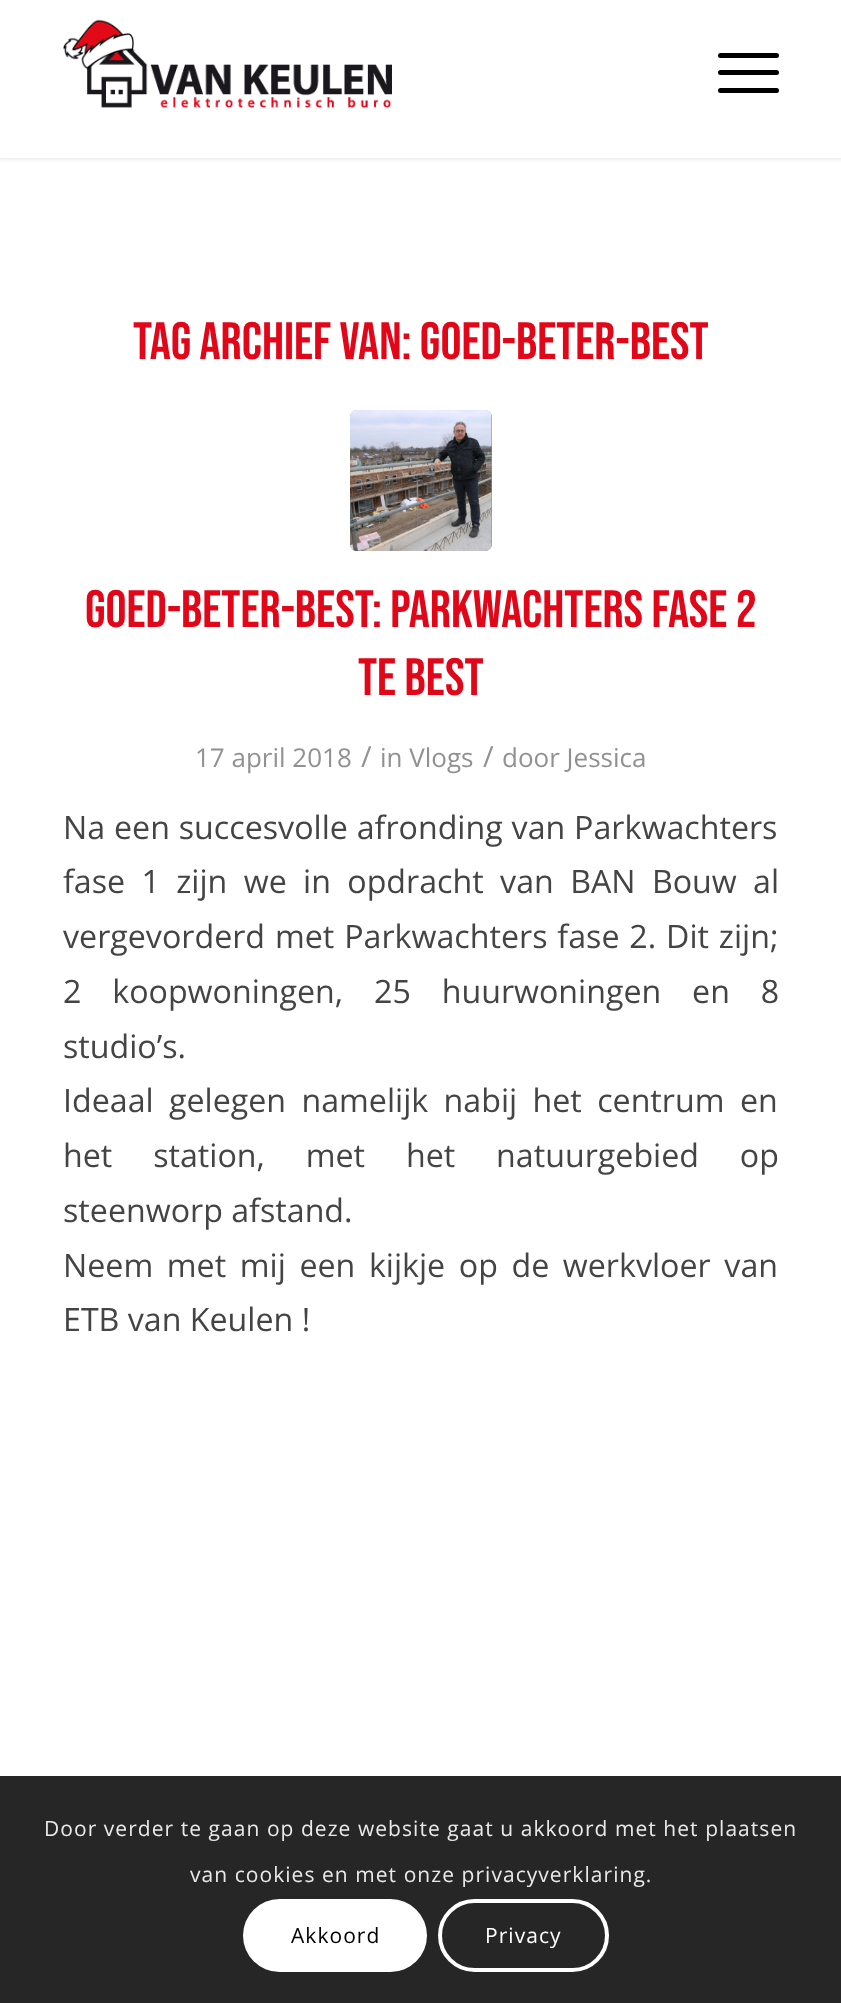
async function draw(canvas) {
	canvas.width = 841;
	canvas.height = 2003;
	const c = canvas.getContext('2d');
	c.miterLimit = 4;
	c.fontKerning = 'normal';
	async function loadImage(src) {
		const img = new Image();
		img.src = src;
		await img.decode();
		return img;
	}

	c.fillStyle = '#fff';
	c.fillRect(0, 0, 841, 2003);
	c.fillStyle = '#0000001a';
	c.filter = 'blur(2px)';
	c.beginPath();
	c.rect(-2, -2, 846, 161);
	c.fill();
	c.filter = 'none';
	c.fillStyle = '#fff';
	c.fillRect(0, 0, 841, 158);
	c.drawImage(await loadImage('img1.png'), 63, 19, 329, 89);
	c.fillStyle = '#000';
	c.beginPath();
	c.roundRect(718, 70, 61, 5, 2.5);
	c.fill();
	c.beginPath();
	c.roundRect(718, 53, 61, 5, 2.5);
	c.fill();
	c.beginPath();
	c.roundRect(718, 88, 61, 5, 2.5);
	c.fill();
	c.font = '52.5px Bebas Neue';
	c.fillStyle = '#e10719';
	c.fillText('Tag Archief van: Goed-Beter-Best', 133, 359);
	c.fillStyle = '#919191';
	c.beginPath();
	c.roundRect(350, 410, 142, 141, 7);
	c.fill();
	c.drawImage(await loadImage('img2.png'), 350, 409, 142, 142);
	c.fillStyle = '#e10719';
	c.fillText('Goed-Beter-Best: Parkwachters fase 2', 85, 627);
	c.fillText('te Best', 358, 695);
	c.font = '26px Open Sans';
	c.fillStyle = '#919191';
	c.fillText('17 april 2018', 195, 767);
	c.font = '29px Open Sans';
	c.fillText('/', 361, 767);
	c.font = '26px Open Sans';
	c.fillText('in Vlogs', 380, 767);
	c.font = '29px Open Sans';
	c.fillText('/', 483, 767);
	c.font = '26px Open Sans';
	c.fillText('door Jessica', 502, 767);
	c.wordSpacing = '0.5px';
	c.font = '32.2px Open Sans';
	c.fillStyle = '#444';
	c.fillText('Na een succesvolle afronding van Parkwachters', 63, 839);
	c.wordSpacing = '8px';
	c.fillText('fase 1 zijn we in opdracht van BAN Bouw al', 63, 893);
	c.wordSpacing = '1.5px';
	c.fillText('vergevorderd met Parkwachters fase 2. Dit zijn;', 63, 948);
	c.wordSpacing = '22.5px';
	c.fillText('2 koopwoningen, 25 huurwoningen en 8', 63, 1003);
	c.wordSpacing = '0px';
	c.fillText('studio’s.', 63, 1058);
	c.wordSpacing = '7px';
	c.fillText('Ideaal gelegen namelijk nabij het centrum en', 63, 1112);
	c.wordSpacing = '32.5px';
	c.fillText('het station, met het natuurgebied op', 63, 1167);
	c.wordSpacing = '0px';
	c.fillText('steenworp afstand.', 63, 1222);
	c.wordSpacing = '5.25px';
	c.fillText('Neem met mij een kijkje op de werkvloer van', 63, 1277);
	c.wordSpacing = '0px';
	c.fillText('ETB van Keulen !', 63, 1331);
	c.fillStyle = '#262626';
	c.fillRect(0, 1776, 841, 227);
	c.letterSpacing = '1.05px';
	c.font = '21px Open Sans';
	c.fillStyle = '#e9e9e9';
	c.fillText('Door verder te gaan op deze website gaat u akkoord met het plaatsen', 44, 1836);
	c.fillText('van cookies en met onze privacyverklaring.', 190, 1882);
	c.fillStyle = '#fff';
	c.beginPath();
	c.roundRect(243, 1899, 184, 73, 36.5);
	c.fill();
	c.fillStyle = '#000';
	c.fillText('Akkoord', 291, 1943);
	c.beginPath();
	c.roundRect(440, 1901, 167, 69, 34.5);
	c.strokeStyle = '#fff';
	c.lineWidth = 4;
	c.stroke();
	c.fillStyle = '#fff';
	c.fillText('Privacy', 485, 1943);
}

draw(document.querySelector('canvas'));
